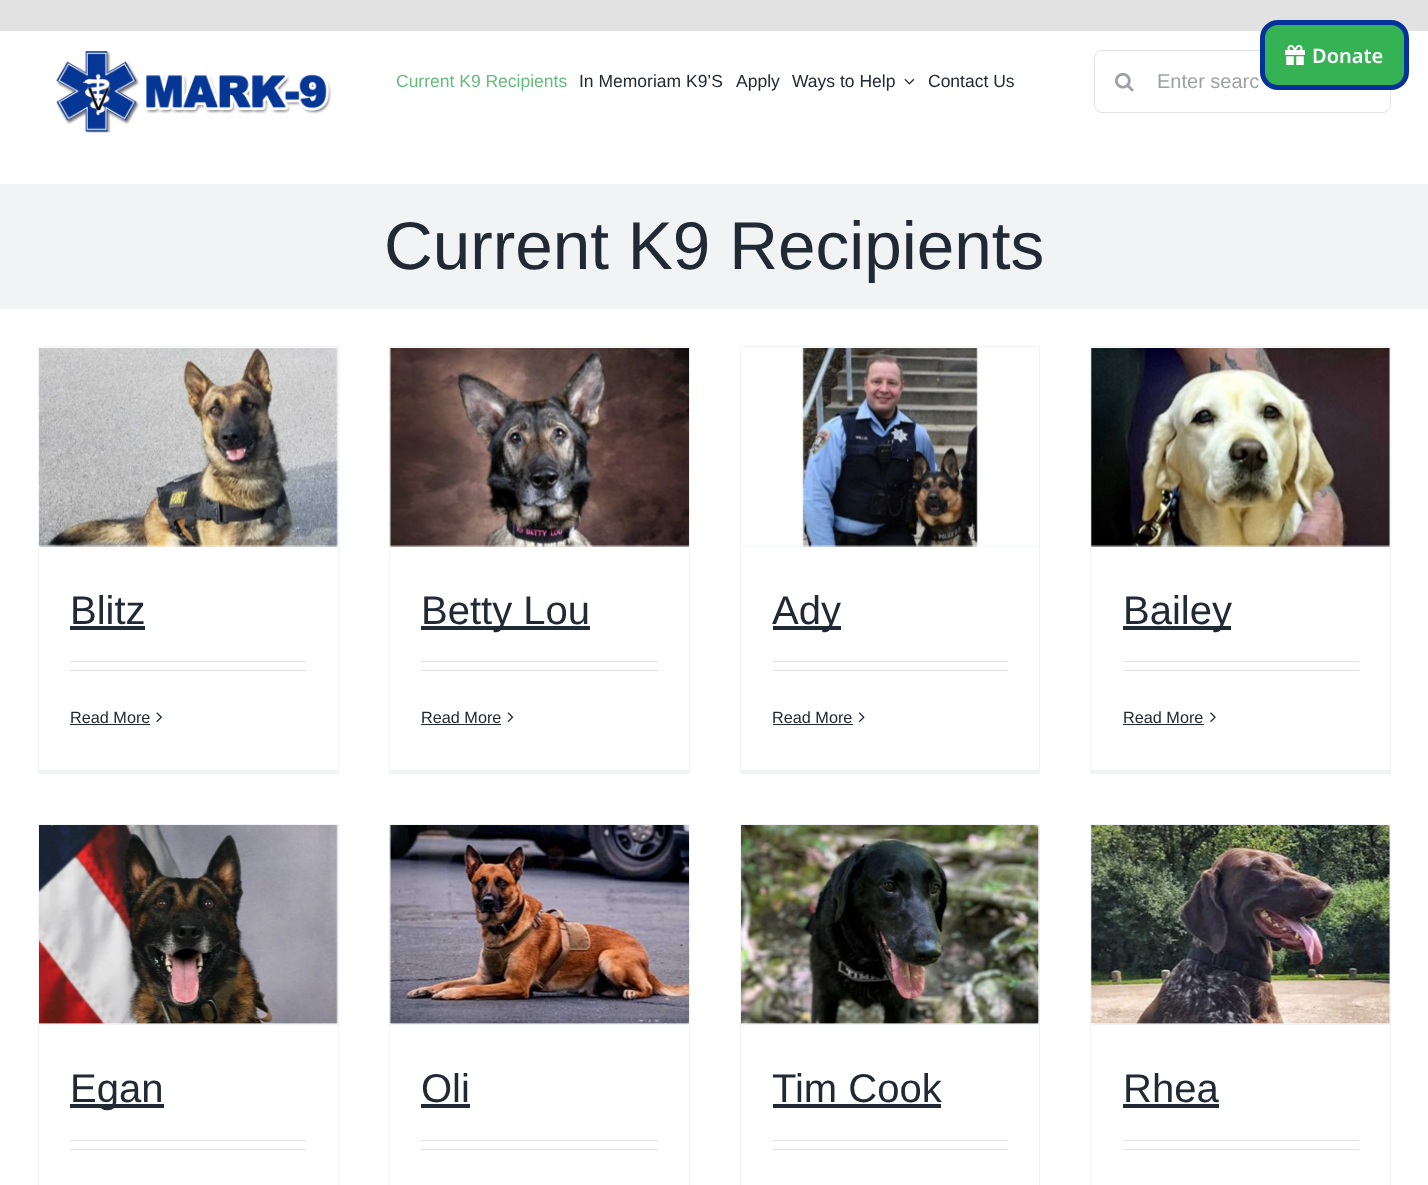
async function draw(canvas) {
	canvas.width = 1428;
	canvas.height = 1185;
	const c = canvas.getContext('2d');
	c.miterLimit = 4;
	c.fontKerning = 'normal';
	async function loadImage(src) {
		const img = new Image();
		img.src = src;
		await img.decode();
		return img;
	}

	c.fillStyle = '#e2e2e2';
	c.fillRect(0, 0, 1428, 1185);
	c.fillStyle = '#fff';
	c.fillRect(0, 31, 1428, 1154);
	c.drawImage(await loadImage('img1.png'), 56, 51, 276, 82);
	c.font = '17.5px Liberation Sans';
	c.fillStyle = '#65bc7b';
	c.fillText('Current K9 Recipients', 396, 87);
	c.fillStyle = '#212934';
	for (const [text, x, y] of [
		['In Memoriam K9’S', 579, 87],
		['Apply', 736, 87],
		['Ways to Help', 792, 87],
	]) {
		c.fillText(text, x, y);
	}
	c.drawImage(await loadImage('img2.png'), 904, 78, 11, 7);
	c.fillText('Contact Us', 928, 87);
	c.beginPath();
	c.roundRect(1094.5, 50.5, 296, 62, 7.5);
	c.strokeStyle = '#e2e2e2';
	c.stroke();
	c.drawImage(await loadImage('img3.png'), 1115, 72, 19, 20);
	c.font = '20px Liberation Sans';
	c.fillStyle = '#9ea0a4';
	c.fillText('Enter searc', 1157, 88);
	c.fillStyle = '#35b254';
	c.beginPath();
	c.roundRect(1262.5, 22.5, 144, 65, 15.5);
	c.fill();
	c.strokeStyle = '#03329a';
	c.lineWidth = 5;
	c.stroke();
	c.drawImage(await loadImage('img4.png'), 1285, 45, 20, 20);
	c.font = '600 20px Noto Sans';
	c.fillStyle = '#fff';
	c.fillText('Donate', 1312, 63);
	c.fillStyle = '#f2f3f5';
	c.fillRect(0, 184, 1428, 125);
	c.font = '67.5px Liberation Sans';
	c.fillStyle = '#212934';
	c.fillText('Current K9 Recipients', 384, 269);
	for (const [x, y, w, h, color] of [
		[38, 346, 301, 1, '#f2f3f5'],
		[338, 346, 1, 428, '#f2f3f5'],
		[38, 770, 301, 4, '#f2f3f5'],
		[38, 346, 1, 428, '#f2f3f5'],
		[39, 546, 299, 1, '#f2f3f5'],
	]) {
		c.fillStyle = color;
		c.fillRect(x, y, w, h);
	}
	c.drawImage(await loadImage('img5.png'), 39, 348, 299, 199);
	c.font = '40px Liberation Sans';
	c.fillStyle = '#212934';
	c.fillText('Blitz', 70, 624);
	for (const [x, y, w, h, color] of [
		[70, 626, 75, 4, '#212934'],
		[70, 661, 236, 1, '#e2e2e2'],
		[70, 670, 236, 1, '#e2e2e2'],
	]) {
		c.fillStyle = color;
		c.fillRect(x, y, w, h);
	}
	c.font = '16.25px Liberation Sans';
	c.fillStyle = '#212934';
	c.fillText('Read More', 70, 723);
	c.fillRect(70, 724, 80, 1);
	c.drawImage(await loadImage('img6.png'), 156, 712, 6, 10);
	for (const [x, y, w, h, color] of [
		[389, 346, 301, 1, '#f2f3f5'],
		[689, 346, 1, 428, '#f2f3f5'],
		[389, 770, 301, 4, '#f2f3f5'],
		[389, 346, 1, 428, '#f2f3f5'],
		[390, 546, 299, 1, '#f2f3f5'],
	]) {
		c.fillStyle = color;
		c.fillRect(x, y, w, h);
	}
	c.drawImage(await loadImage('img7.png'), 389, 348, 300, 199);
	c.fillStyle = '#212934';
	c.fillRect(421, 626, 169, 4);
	c.font = '40px Liberation Sans';
	c.fillText('Betty Lou', 421, 624);
	c.fillStyle = '#e2e2e2';
	c.fillRect(421, 661, 237, 1);
	c.fillRect(421, 670, 237, 1);
	c.font = '16.25px Liberation Sans';
	c.fillStyle = '#212934';
	c.fillText('Read More', 421, 723);
	c.fillRect(421, 724, 80, 1);
	c.drawImage(await loadImage('img8.png'), 507, 712, 7, 10);
	for (const [x, y, w, h, color] of [
		[740, 346, 300, 1, '#f2f3f5'],
		[1039, 346, 1, 428, '#f2f3f5'],
		[740, 770, 300, 4, '#f2f3f5'],
		[740, 346, 1, 428, '#f2f3f5'],
		[741, 546, 298, 1, '#f2f3f5'],
	]) {
		c.fillStyle = color;
		c.fillRect(x, y, w, h);
	}
	c.drawImage(await loadImage('img9.png'), 741, 348, 297, 199);
	c.fillStyle = '#212934';
	c.fillRect(773, 626, 68, 4);
	c.font = '40px Liberation Sans';
	c.fillText('Ady', 772, 624);
	c.fillStyle = '#e2e2e2';
	c.fillRect(773, 661, 235, 1);
	c.fillRect(773, 670, 235, 1);
	c.font = '16.25px Liberation Sans';
	c.fillStyle = '#212934';
	c.fillText('Read More', 772, 723);
	c.fillRect(773, 724, 80, 1);
	c.drawImage(await loadImage('img10.png'), 858, 712, 7, 10);
	for (const [x, y, w, h, color] of [
		[1090, 346, 301, 1, '#f2f3f5'],
		[1390, 346, 1, 428, '#f2f3f5'],
		[1090, 770, 301, 4, '#f2f3f5'],
		[1090, 346, 1, 428, '#f2f3f5'],
		[1091, 546, 299, 1, '#f2f3f5'],
	]) {
		c.fillStyle = color;
		c.fillRect(x, y, w, h);
	}
	c.drawImage(await loadImage('img11.png'), 1091, 348, 299, 199);
	c.fillStyle = '#212934';
	c.fillRect(1123, 626, 108, 4);
	c.font = '40px Liberation Sans';
	c.fillText('Bailey', 1123, 624);
	c.fillStyle = '#e2e2e2';
	c.fillRect(1123, 661, 236, 1);
	c.fillRect(1123, 670, 236, 1);
	c.font = '16.25px Liberation Sans';
	c.fillStyle = '#212934';
	c.fillText('Read More', 1123, 723);
	c.fillRect(1123, 724, 81, 1);
	c.drawImage(await loadImage('img12.png'), 1210, 712, 6, 10);
	for (const [x, y, w, h, color] of [
		[38, 824, 301, 1, '#f2f3f5'],
		[338, 824, 1, 361, '#f2f3f5'],
		[38, 824, 1, 361, '#f2f3f5'],
		[39, 1024, 299, 1, '#f2f3f5'],
	]) {
		c.fillStyle = color;
		c.fillRect(x, y, w, h);
	}
	c.drawImage(await loadImage('img13.png'), 39, 825, 299, 199);
	c.fillStyle = '#212934';
	c.fillRect(70, 1104, 94, 4);
	c.font = '40px Liberation Sans';
	c.fillText('Egan', 70, 1102);
	for (const [x, y, w, h, color] of [
		[70, 1140, 236, 1, '#e2e2e2'],
		[70, 1149, 236, 1, '#e2e2e2'],
		[389, 824, 301, 1, '#f2f3f5'],
		[689, 824, 1, 361, '#f2f3f5'],
		[389, 824, 1, 361, '#f2f3f5'],
		[390, 1024, 299, 1, '#f2f3f5'],
	]) {
		c.fillStyle = color;
		c.fillRect(x, y, w, h);
	}
	c.drawImage(await loadImage('img14.png'), 389, 825, 300, 199);
	c.fillStyle = '#212934';
	c.fillText('Oli', 421, 1102);
	for (const [x, y, w, h, color] of [
		[421, 1104, 49, 4, '#212934'],
		[421, 1140, 237, 1, '#e2e2e2'],
		[421, 1149, 237, 1, '#e2e2e2'],
		[740, 824, 300, 1, '#f2f3f5'],
		[1039, 824, 1, 361, '#f2f3f5'],
		[740, 824, 1, 361, '#f2f3f5'],
		[741, 1024, 298, 1, '#f2f3f5'],
	]) {
		c.fillStyle = color;
		c.fillRect(x, y, w, h);
	}
	c.drawImage(await loadImage('img15.png'), 741, 825, 299, 199);
	c.fillStyle = '#212934';
	c.fillText('Tim Cook', 772, 1102);
	for (const [x, y, w, h, color] of [
		[773, 1104, 168, 4, '#212934'],
		[773, 1140, 235, 1, '#e2e2e2'],
		[773, 1149, 235, 1, '#e2e2e2'],
		[1090, 824, 301, 1, '#f2f3f5'],
		[1390, 824, 1, 361, '#f2f3f5'],
		[1090, 824, 1, 361, '#f2f3f5'],
		[1091, 1024, 299, 1, '#f2f3f5'],
	]) {
		c.fillStyle = color;
		c.fillRect(x, y, w, h);
	}
	c.drawImage(await loadImage('img16.png'), 1091, 825, 299, 199);
	c.fillStyle = '#212934';
	c.fillText('Rhea', 1123, 1102);
	for (const [x, y, w, h, color] of [
		[1123, 1104, 96, 4, '#212934'],
		[1123, 1140, 236, 1, '#e2e2e2'],
		[1123, 1149, 236, 1, '#e2e2e2'],
	]) {
		c.fillStyle = color;
		c.fillRect(x, y, w, h);
	}
}

draw(document.querySelector('canvas'));
